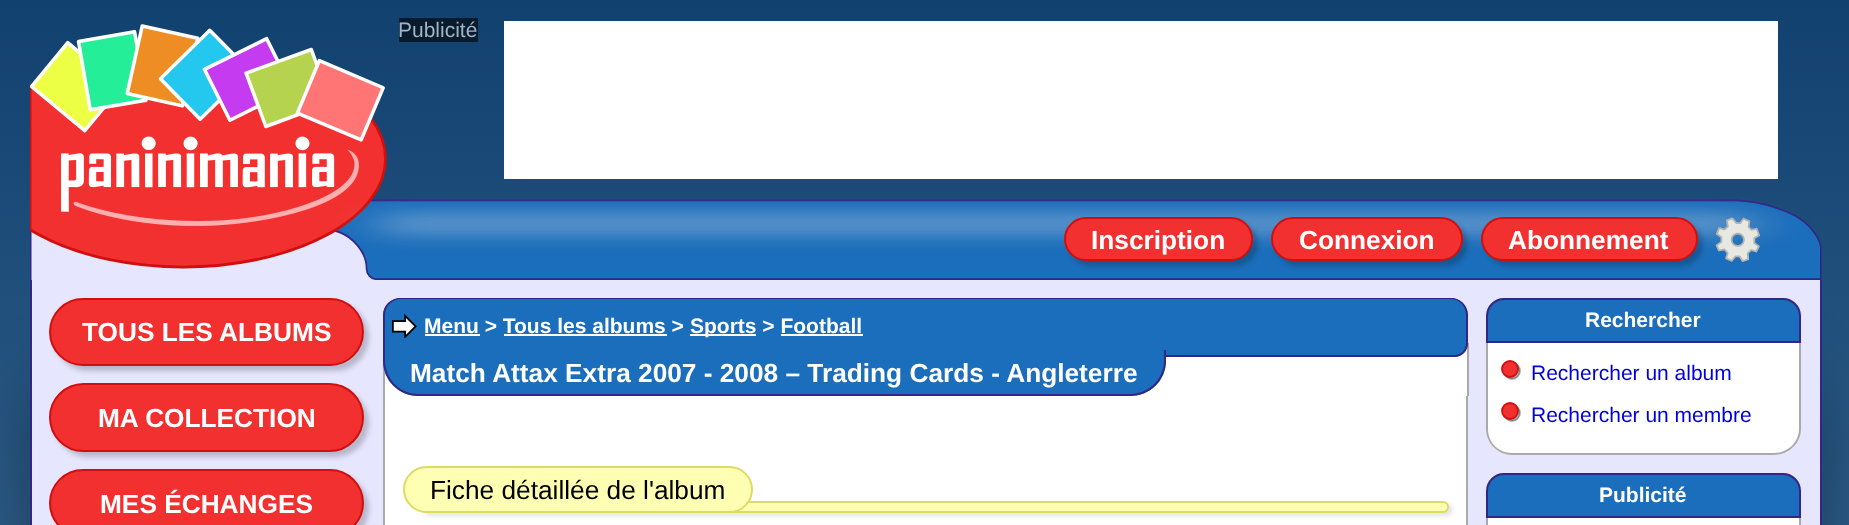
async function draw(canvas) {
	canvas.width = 1849;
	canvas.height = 525;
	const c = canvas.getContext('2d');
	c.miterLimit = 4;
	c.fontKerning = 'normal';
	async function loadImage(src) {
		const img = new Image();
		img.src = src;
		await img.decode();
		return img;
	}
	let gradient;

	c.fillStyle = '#fff';
	c.fillRect(0, 0, 1849, 525);
	gradient = c.createLinearGradient(925, 0, 925, 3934);
	gradient.addColorStop(0, '#11416f');
	gradient.addColorStop(0.67, '#98c0e2');
	c.fillStyle = gradient;
	c.fillRect(0, 0, 1849, 525);
	c.drawImage(await loadImage('img2.png'), 30, 24, 1792, 256);
	c.fillStyle = '#0000004d';
	c.filter = 'blur(35px)';
	c.beginPath();
	c.roundRect(30, 368, 1792, 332, 70);
	c.fill();
	c.filter = 'none';
	c.fillStyle = '#e6e6ff';
	c.fillRect(32, 280, 1788, 245);
	c.fillStyle = '#322787';
	c.beginPath();
	c.moveTo(30, 280);
	c.lineTo(1822, 280);
	c.lineTo(1822, 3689);
	c.bezierCurveTo(1822, 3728, 1790, 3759, 1752, 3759);
	c.lineTo(100, 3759);
	c.bezierCurveTo(61, 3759, 30, 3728, 30, 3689);
	c.closePath();
	c.moveTo(32, 280);
	c.lineTo(1820, 280);
	c.lineTo(1820, 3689);
	c.bezierCurveTo(1820, 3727, 1789, 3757, 1752, 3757);
	c.lineTo(100, 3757);
	c.bezierCurveTo(62, 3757, 32, 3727, 32, 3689);
	c.closePath();
	c.fill('evenodd');
	c.fillStyle = '#071b2d';
	c.fillRect(399, 18, 79, 24);
	c.font = '21px Liberation Sans';
	c.fillStyle = '#a0b4c6';
	c.fillText('Publicité', 398, 37);
	c.fillStyle = '#fff';
	c.fillRect(504, 21, 1274, 158);
	c.fillStyle = '#00000033';
	c.filter = 'blur(2.5px)';
	c.beginPath();
	c.roundRect(54, 303, 315, 68, 34);
	c.fill();
	c.filter = 'none';
	c.fillStyle = '#f23030';
	c.beginPath();
	c.roundRect(50, 299, 313, 66, 33);
	c.fill();
	c.strokeStyle = '#d00f0f';
	c.lineWidth = 2;
	c.stroke();
	c.font = 'bold 26.25px Liberation Sans';
	c.fillStyle = '#fff';
	c.fillText('TOUS LES ALBUMS', 82, 341);
	c.fillStyle = '#00000033';
	c.filter = 'blur(2.5px)';
	c.beginPath();
	c.roundRect(54, 389, 315, 68, 34);
	c.fill();
	c.filter = 'none';
	c.fillStyle = '#f23030';
	c.beginPath();
	c.roundRect(50, 384, 313, 67, 33.5);
	c.fill();
	c.stroke();
	c.fillStyle = '#fff';
	c.fillText('MA COLLECTION', 98, 427);
	c.fillStyle = '#00000033';
	c.filter = 'blur(2.5px)';
	c.beginPath();
	c.roundRect(54, 474, 315, 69, 34.5);
	c.fill();
	c.filter = 'none';
	c.fillStyle = '#f23030';
	c.beginPath();
	c.roundRect(50, 470, 313, 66, 33);
	c.fill();
	c.stroke();
	c.fillStyle = '#fff';
	c.fillText('MES ÉCHANGES', 100, 513);
	c.fillStyle = '#1b6ebb';
	c.beginPath();
	c.roundRect(383, 298, 1085, 45, [18, 18, 0, 0]);
	c.fill();
	c.fillStyle = '#322787';
	c.beginPath();
	c.moveTo(401, 298);
	c.lineTo(1451, 298);
	c.bezierCurveTo(1460, 298, 1468, 305, 1468, 315);
	c.lineTo(1468, 343);
	c.lineTo(383, 343);
	c.lineTo(383, 315);
	c.bezierCurveTo(383, 305, 391, 298, 401, 298);
	c.closePath();
	c.moveTo(401, 299);
	c.lineTo(1451, 299);
	c.bezierCurveTo(1459, 299, 1466, 306, 1466, 315);
	c.lineTo(1466, 343);
	c.lineTo(385, 343);
	c.lineTo(385, 315);
	c.bezierCurveTo(385, 306, 392, 299, 401, 299);
	c.closePath();
	c.fill('evenodd');
	c.drawImage(await loadImage('img1.png'), 391, 313, 26, 25);
	c.font = 'bold 21px Liberation Sans';
	c.fillStyle = '#fff';
	c.fillText('Menu > Tous les albums >', 424, 333);
	c.fillRect(425, 334, 55, 2);
	c.fillRect(690, 334, 66, 2);
	c.fillText('Sports > Football', 690, 333);
	for (const [x, y, w, h, color] of [
		[504, 334, 163, 2, '#fff'],
		[781, 334, 82, 2, '#fff'],
		[385, 348, 1082, 48, '#fff'],
		[1467, 343, 2, 53, '#aaa'],
		[383, 361, 2, 35, '#aaa'],
	]) {
		c.fillStyle = color;
		c.fillRect(x, y, w, h);
	}
	c.fillStyle = '#1b6ebb';
	c.beginPath();
	c.roundRect(383, 343, 1085, 14, [0, 0, 14, 0]);
	c.fill();
	c.fillStyle = '#322787';
	c.beginPath();
	c.moveTo(383, 343);
	c.lineTo(1468, 343);
	c.bezierCurveTo(1468, 351, 1462, 357, 1454, 357);
	c.lineTo(383, 357);
	c.closePath();
	c.moveTo(385, 343);
	c.lineTo(1466, 343);
	c.bezierCurveTo(1466, 350, 1461, 355, 1454, 355);
	c.lineTo(385, 355);
	c.closePath();
	c.fill('evenodd');
	c.fillStyle = '#1b6ebb';
	c.beginPath();
	c.roundRect(383, 350, 783, 46, [0, 0, 35, 35]);
	c.fill();
	c.fillStyle = '#322787';
	c.beginPath();
	c.moveTo(383, 350);
	c.lineTo(1166, 350);
	c.lineTo(1166, 360);
	c.bezierCurveTo(1166, 380, 1150, 396, 1130, 396);
	c.lineTo(418, 396);
	c.bezierCurveTo(399, 396, 383, 380, 383, 360);
	c.closePath();
	c.moveTo(385, 350);
	c.lineTo(1164, 350);
	c.lineTo(1164, 360);
	c.bezierCurveTo(1164, 379, 1149, 394, 1130, 394);
	c.lineTo(418, 394);
	c.bezierCurveTo(400, 394, 385, 379, 385, 360);
	c.closePath();
	c.fill('evenodd');
	c.font = 'bold 26.25px Liberation Sans';
	c.fillStyle = '#fff';
	c.fillText('Match Attax Extra 2007 - 2008 – Trading Cards - Angleterre', 410, 382);
	c.fillRect(385, 396, 1081, 129);
	c.fillStyle = '#aaa';
	c.beginPath();
	c.moveTo(383, 396);
	c.lineTo(1468, 396);
	c.lineTo(1468, 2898);
	c.bezierCurveTo(1468, 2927, 1445, 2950, 1416, 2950);
	c.lineTo(436, 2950);
	c.bezierCurveTo(407, 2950, 383, 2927, 383, 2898);
	c.closePath();
	c.moveTo(385, 396);
	c.lineTo(1466, 396);
	c.lineTo(1466, 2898);
	c.bezierCurveTo(1466, 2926, 1444, 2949, 1416, 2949);
	c.lineTo(436, 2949);
	c.bezierCurveTo(408, 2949, 385, 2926, 385, 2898);
	c.closePath();
	c.fill('evenodd');
	c.fillStyle = '#0000001a';
	c.filter = 'blur(2px)';
	c.beginPath();
	c.roundRect(424, 504, 1029, 12, 6);
	c.fill();
	c.filter = 'none';
	c.fillStyle = '#ffffb4';
	c.beginPath();
	c.roundRect(421, 502, 1027, 10, 5);
	c.fill();
	c.strokeStyle = '#dcdc64';
	c.stroke();
	c.beginPath();
	c.roundRect(404, 467, 348, 45, 22.5);
	c.fill();
	c.stroke();
	c.font = '26.25px Liberation Sans';
	c.fillStyle = '#000';
	c.fillText('Fiche détaillée de l\'album', 430, 499);
	c.fillStyle = '#1b6ebb';
	c.beginPath();
	c.roundRect(1487, 299, 313, 43, [17, 17, 0, 0]);
	c.fill();
	c.strokeStyle = '#322787';
	c.stroke();
	c.font = 'bold 21px Liberation Sans';
	c.fillStyle = '#fff';
	c.fillText('Rechercher', 1585, 327);
	c.beginPath();
	c.roundRect(1486, 343, 315, 112, [0, 0, 26, 26]);
	c.fill();
	c.fillStyle = '#aaa';
	c.beginPath();
	c.moveTo(1486, 343);
	c.lineTo(1801, 343);
	c.lineTo(1801, 429);
	c.bezierCurveTo(1801, 443, 1789, 455, 1774, 455);
	c.lineTo(1512, 455);
	c.bezierCurveTo(1498, 455, 1486, 443, 1486, 429);
	c.closePath();
	c.moveTo(1488, 343);
	c.lineTo(1799, 343);
	c.lineTo(1799, 429);
	c.bezierCurveTo(1799, 442, 1788, 453, 1774, 453);
	c.lineTo(1512, 453);
	c.bezierCurveTo(1498, 453, 1488, 442, 1488, 429);
	c.closePath();
	c.fill('evenodd');
	c.fillStyle = '#b3b3b3';
	c.beginPath();
	c.arc(1512, 371, 8, 0, 2 * Math.PI);
	c.fill();
	c.strokeStyle = '#0000004d';
	c.lineWidth = 1.8;
	c.stroke();
	c.fillStyle = '#f23030';
	c.beginPath();
	c.arc(1510, 369, 8, 0, 2 * Math.PI);
	c.fill();
	c.strokeStyle = '#d00f0f';
	c.stroke();
	c.font = '21px Liberation Sans';
	c.fillStyle = '#0000dc';
	c.fillText('Rechercher un album', 1531, 380);
	c.fillStyle = '#b3b3b3';
	c.beginPath();
	c.arc(1512, 413, 8, 0, 2 * Math.PI);
	c.fill();
	c.strokeStyle = '#0000004d';
	c.stroke();
	c.fillStyle = '#f23030';
	c.beginPath();
	c.arc(1510, 411, 8, 0, 2 * Math.PI);
	c.fill();
	c.strokeStyle = '#d00f0f';
	c.stroke();
	c.fillStyle = '#0000dc';
	c.fillText('Rechercher un membre', 1531, 422);
	c.fillStyle = '#1b6ebb';
	c.beginPath();
	c.roundRect(1487, 474, 313, 43, [17, 17, 0, 0]);
	c.fill();
	c.strokeStyle = '#322787';
	c.lineWidth = 2;
	c.stroke();
	c.font = 'bold 21px Liberation Sans';
	c.fillStyle = '#fff';
	c.fillText('Publicité', 1599, 502);
	c.fillRect(1486, 518, 315, 7);
	c.fillStyle = '#aaa';
	c.beginPath();
	c.moveTo(1486, 518);
	c.lineTo(1801, 518);
	c.lineTo(1801, 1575);
	c.bezierCurveTo(1801, 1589, 1789, 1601, 1774, 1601);
	c.lineTo(1512, 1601);
	c.bezierCurveTo(1498, 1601, 1486, 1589, 1486, 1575);
	c.closePath();
	c.moveTo(1488, 518);
	c.lineTo(1799, 518);
	c.lineTo(1799, 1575);
	c.bezierCurveTo(1799, 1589, 1788, 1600, 1774, 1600);
	c.lineTo(1512, 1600);
	c.bezierCurveTo(1498, 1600, 1488, 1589, 1488, 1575);
	c.closePath();
	c.fill('evenodd');
	c.drawImage(await loadImage('img3.png'), 60, 136, 299, 90);
	c.fillStyle = '#00000033';
	c.filter = 'blur(2.5px)';
	c.beginPath();
	c.roundRect(1069, 222, 189, 44, 22);
	c.fill();
	c.filter = 'none';
	c.fillStyle = '#f23030';
	c.beginPath();
	c.roundRect(1065, 218, 187, 42, 21);
	c.fill();
	c.strokeStyle = '#d00f0f';
	c.stroke();
	c.font = 'bold 26.25px Liberation Sans';
	c.fillStyle = '#fff';
	c.fillText('Inscription', 1091, 249);
	c.fillStyle = '#00000033';
	c.filter = 'blur(2.5px)';
	c.beginPath();
	c.roundRect(1276, 222, 192, 44, 22);
	c.fill();
	c.filter = 'none';
	c.fillStyle = '#f23030';
	c.beginPath();
	c.roundRect(1272, 218, 190, 42, 21);
	c.fill();
	c.stroke();
	c.fillStyle = '#fff';
	c.fillText('Connexion', 1299, 249);
	c.fillStyle = '#00000033';
	c.filter = 'blur(2.5px)';
	c.beginPath();
	c.roundRect(1486, 222, 217, 44, 22);
	c.fill();
	c.filter = 'none';
	c.fillStyle = '#f23030';
	c.beginPath();
	c.roundRect(1482, 218, 215, 42, 21);
	c.fill();
	c.stroke();
	c.fillStyle = '#fff';
	c.fillText('Abonnement', 1508, 249);
	c.drawImage(await loadImage('img4.png'), 1715, 217, 46, 45);
}

draw(document.querySelector('canvas'));
